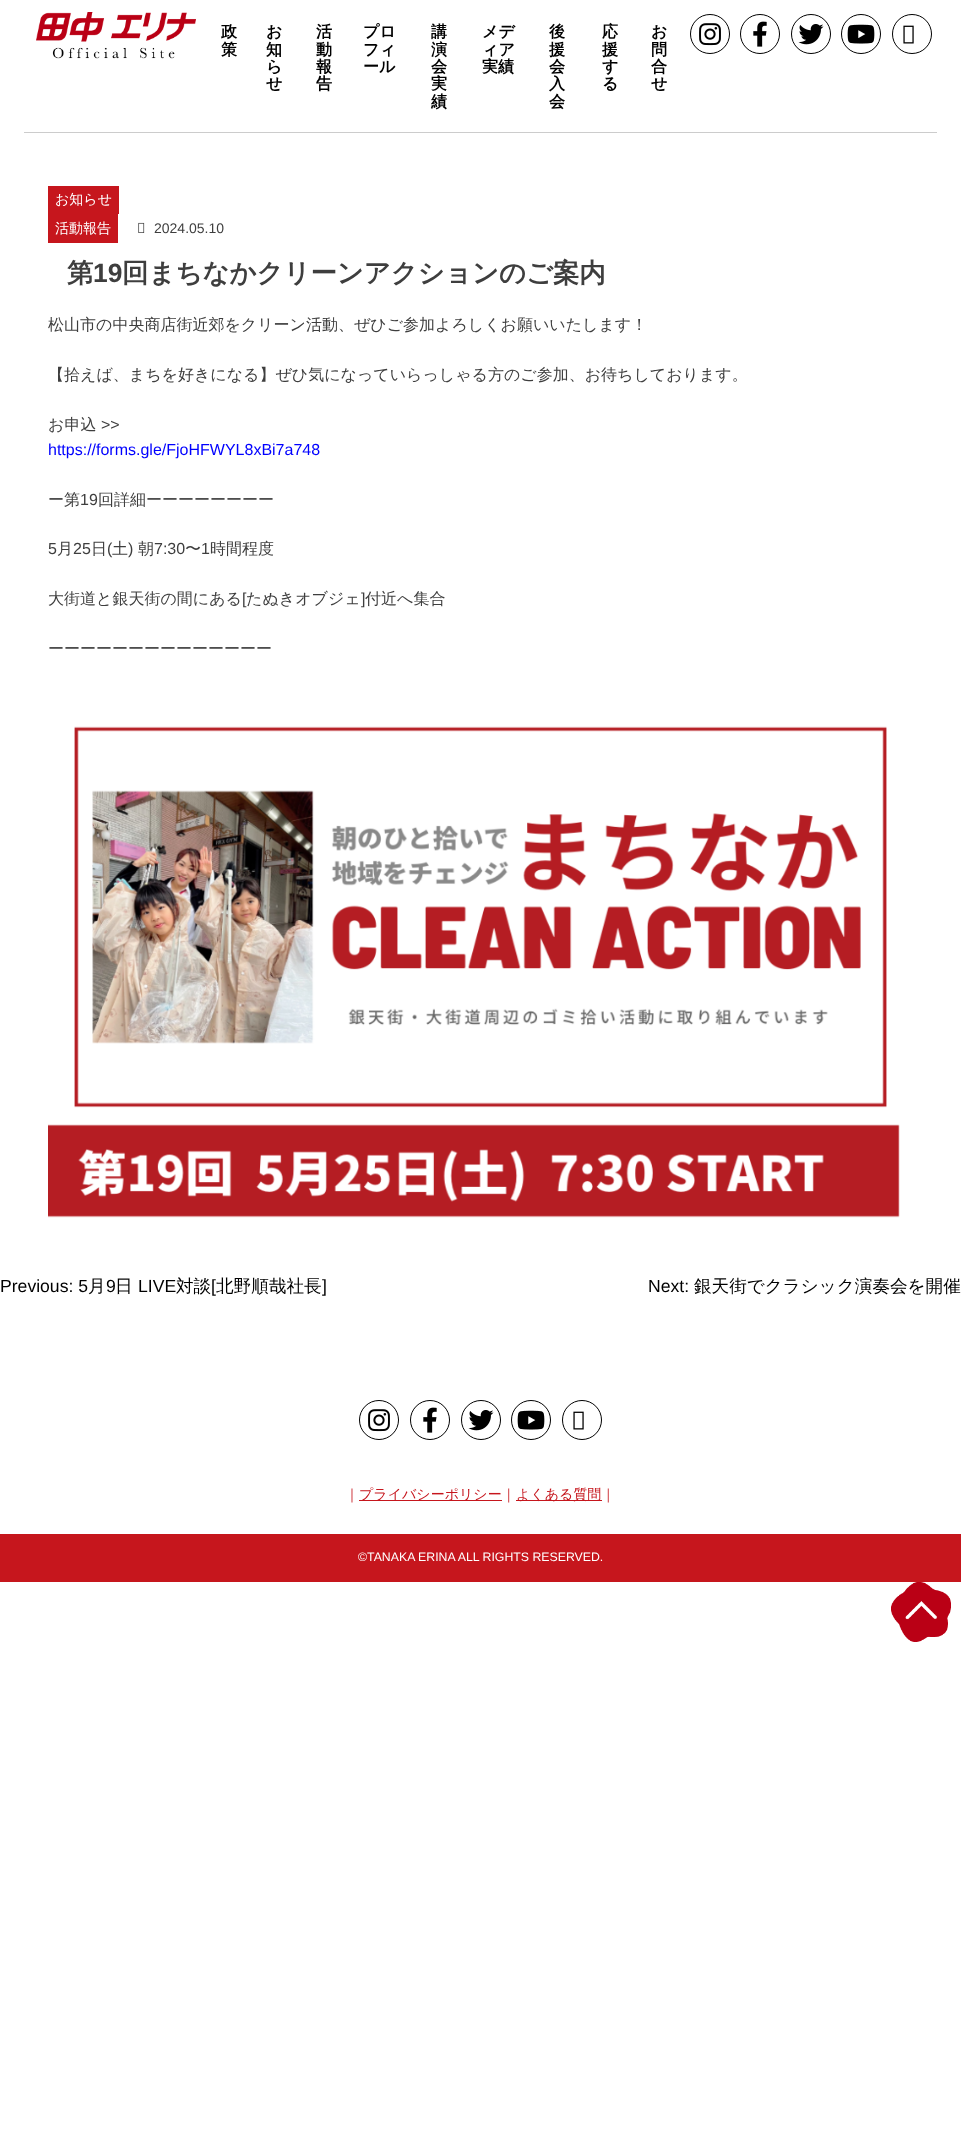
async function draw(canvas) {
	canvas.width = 961;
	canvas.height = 2147;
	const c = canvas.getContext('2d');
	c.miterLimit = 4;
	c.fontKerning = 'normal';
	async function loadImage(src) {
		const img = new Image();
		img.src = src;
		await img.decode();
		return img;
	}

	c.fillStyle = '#fff';
	c.fillRect(0, 0, 961, 2147);
	c.fillStyle = '#ccc';
	c.fillRect(24, 132, 913, 1);
	c.drawImage(await loadImage('img1.png'), 36, 12, 160, 47);
	c.font = 'bold 16px WenQuanYi Zen Hei';
	c.fillStyle = '#000';
	for (const [text, x, y] of [
		['政', 221, 37],
		['策', 221, 55],
		['お', 266, 37],
		['知', 266, 55],
		['ら', 266, 72],
		['せ', 266, 89],
		['活', 316, 37],
		['動', 316, 55],
		['報', 316, 72],
		['告', 316, 89],
		['プロ', 363, 37],
		['フィ', 363, 55],
		['ール', 363, 72],
		['講', 431, 37],
		['演', 431, 55],
		['会', 431, 72],
		['実', 431, 89],
		['績', 431, 107],
		['メデ', 482, 37],
		['ィア', 482, 55],
		['実績', 482, 72],
		['後', 549, 37],
		['援', 549, 55],
		['会', 549, 72],
		['入', 549, 89],
		['会', 549, 107],
		['応', 602, 37],
		['援', 602, 55],
		['す', 602, 72],
		['る', 602, 89],
		['お', 651, 37],
		['問', 651, 55],
		['合', 651, 72],
		['せ', 651, 89],
	]) {
		c.fillText(text, x, y);
	}
	c.beginPath();
	c.arc(710, 34, 19.5, 0, 2 * Math.PI);
	c.strokeStyle = '#000';
	c.stroke();
	c.drawImage(await loadImage('img2.png'), 699, 23, 22, 23);
	c.beginPath();
	c.arc(760, 34, 19.5, 0, 2 * Math.PI);
	c.stroke();
	c.drawImage(await loadImage('img3.png'), 753, 21, 14, 26);
	c.beginPath();
	c.arc(811, 34, 19.5, 0, 2 * Math.PI);
	c.stroke();
	c.drawImage(await loadImage('img4.png'), 798, 24, 26, 21);
	c.beginPath();
	c.arc(861, 34, 19.5, 0, 2 * Math.PI);
	c.stroke();
	c.drawImage(await loadImage('img5.png'), 847, 24, 28, 20);
	c.beginPath();
	c.arc(912, 34, 19.5, 0, 2 * Math.PI);
	c.stroke();
	c.drawImage(await loadImage('img6.png'), 903, 25, 11, 19);
	c.fillStyle = '#c6161d';
	c.fillRect(48, 186, 71, 28);
	c.font = '500 14px WenQuanYi Zen Hei';
	c.fillStyle = '#fff';
	c.fillText('お知らせ', 55, 204);
	c.fillStyle = '#c6161d';
	c.fillRect(48, 214, 70, 29);
	c.fillStyle = '#fff';
	c.fillText('活動報告', 55, 233);
	c.drawImage(await loadImage('img7.png'), 138, 222, 7, 11);
	c.font = '14px Liberation Sans';
	c.fillStyle = '#3e3e3e';
	c.fillText('2024.05.10', 154, 233);
	c.font = 'bold 26.4px WenQuanYi Zen Hei';
	c.fillText('第', 67, 282);
	c.font = 'bold 26.4px Liberation Sans';
	c.fillText('19', 93, 282);
	c.font = 'bold 26.4px WenQuanYi Zen Hei';
	c.fillText('回まちなかクリーンアクションのご案内', 122, 282);
	c.font = '500 16px WenQuanYi Zen Hei';
	for (const [text, x, y] of [
		['松山市の中央商店街近郊をクリーン活動、ぜひご参加よろしくお願いいたします！', 48, 330],
		['【拾えば、まちを好きになる】ぜひ気になっていらっしゃる方のご参加、お待ちしております。', 48, 380],
		['お申込', 48, 430],
	]) {
		c.fillText(text, x, y);
	}
	c.font = '16px Liberation Sans';
	c.fillText('>>', 101, 430);
	c.fillStyle = '#00f';
	c.fillText('https://forms.gle/FjoHFWYL8xBi7a748', 48, 455);
	c.font = '500 16px WenQuanYi Zen Hei';
	c.fillStyle = '#3e3e3e';
	c.fillText('ー第', 48, 505);
	c.font = '16px Liberation Sans';
	c.fillText('19', 80, 505);
	c.font = '500 16px WenQuanYi Zen Hei';
	c.fillText('回詳細ーーーーーーーー', 98, 505);
	c.font = '16px Liberation Sans';
	c.fillText('5', 48, 554);
	c.font = '500 16px WenQuanYi Zen Hei';
	c.fillText('月', 57, 554);
	c.font = '16px Liberation Sans';
	c.fillText('25', 73, 554);
	c.font = '500 16px WenQuanYi Zen Hei';
	c.fillText('日', 91, 554);
	c.font = '16px Liberation Sans';
	c.fillText('(', 107, 554);
	c.font = '500 16px WenQuanYi Zen Hei';
	c.fillText('土', 112, 554);
	c.font = '16px Liberation Sans';
	c.fillText(')', 128, 554);
	c.font = '500 16px WenQuanYi Zen Hei';
	c.fillText('朝', 138, 554);
	c.font = '16px Liberation Sans';
	c.fillText('7:30', 154, 554);
	c.font = '500 16px WenQuanYi Zen Hei';
	c.fillText('〜', 185, 554);
	c.font = '16px Liberation Sans';
	c.fillText('1', 201, 554);
	c.font = '500 16px WenQuanYi Zen Hei';
	c.fillText('時間程度', 210, 554);
	c.fillText('大街道と銀天街の間にある', 48, 604);
	c.font = '16px Liberation Sans';
	c.fillText('[', 242, 604);
	c.font = '500 16px WenQuanYi Zen Hei';
	c.fillText('たぬきオブジェ', 246, 604);
	c.font = '16px Liberation Sans';
	c.fillText(']', 361, 604);
	c.font = '500 16px WenQuanYi Zen Hei';
	c.fillText('付近へ集合', 365, 604);
	c.fillText('ーーーーーーーーーーーーーー', 48, 654);
	c.drawImage(await loadImage('img8.png'), 48, 726, 852, 492);
	c.font = '17.6px Liberation Sans';
	c.fillStyle = '#000';
	c.fillText('Previous: 5', 0, 1292);
	c.font = '500 17.6px WenQuanYi Zen Hei';
	c.fillText('月', 88, 1292);
	c.font = '17.6px Liberation Sans';
	c.fillText('9', 106, 1292);
	c.font = '500 17.6px WenQuanYi Zen Hei';
	c.fillText('日', 115, 1292);
	c.font = '17.6px Liberation Sans';
	c.fillText('LIVE', 138, 1292);
	c.font = '500 17.6px WenQuanYi Zen Hei';
	c.fillText('対談', 176, 1292);
	c.font = '17.6px Liberation Sans';
	c.fillText('[', 211, 1292);
	c.font = '500 17.6px WenQuanYi Zen Hei';
	c.fillText('北野順哉社長', 216, 1292);
	c.font = '17.6px Liberation Sans';
	c.fillText(']', 322, 1292);
	c.fillText('Next:', 648, 1292);
	c.font = '500 17.6px WenQuanYi Zen Hei';
	c.fillText('銀天街でクラシック演奏会を開催', 694, 1292);
	c.beginPath();
	c.arc(379, 1420, 19.5, 0, 2 * Math.PI);
	c.stroke();
	c.drawImage(await loadImage('img2.png'), 368, 1409, 22, 23);
	c.beginPath();
	c.arc(430, 1420, 19.5, 0, 2 * Math.PI);
	c.stroke();
	c.drawImage(await loadImage('img3.png'), 423, 1407, 14, 26);
	c.beginPath();
	c.arc(481, 1420, 19.5, 0, 2 * Math.PI);
	c.stroke();
	c.drawImage(await loadImage('img4.png'), 468, 1410, 26, 21);
	c.beginPath();
	c.arc(531, 1420, 19.5, 0, 2 * Math.PI);
	c.stroke();
	c.drawImage(await loadImage('img5.png'), 517, 1410, 28, 20);
	c.beginPath();
	c.arc(582, 1420, 19.5, 0, 2 * Math.PI);
	c.stroke();
	c.drawImage(await loadImage('img6.png'), 573, 1411, 11, 19);
	c.font = '500 14px WenQuanYi Zen Hei';
	c.fillStyle = '#c6161d';
	c.fillText('｜', 345, 1499);
	c.fillRect(359, 1500, 143, 1);
	c.fillText('プライバシーポリシー｜', 359, 1499);
	c.fillRect(516, 1500, 86, 1);
	c.fillText('よくある質問｜', 516, 1499);
	c.fillRect(0, 1534, 961, 48);
	c.font = '12.3px Liberation Sans';
	c.fillStyle = '#fff';
	c.fillText('©︎TANAKA ERINA ALL RIGHTS RESERVED.', 358, 1561);
	c.drawImage(await loadImage('img9.png'), 891, 1582, 60, 60);
}

draw(document.querySelector('canvas'));
